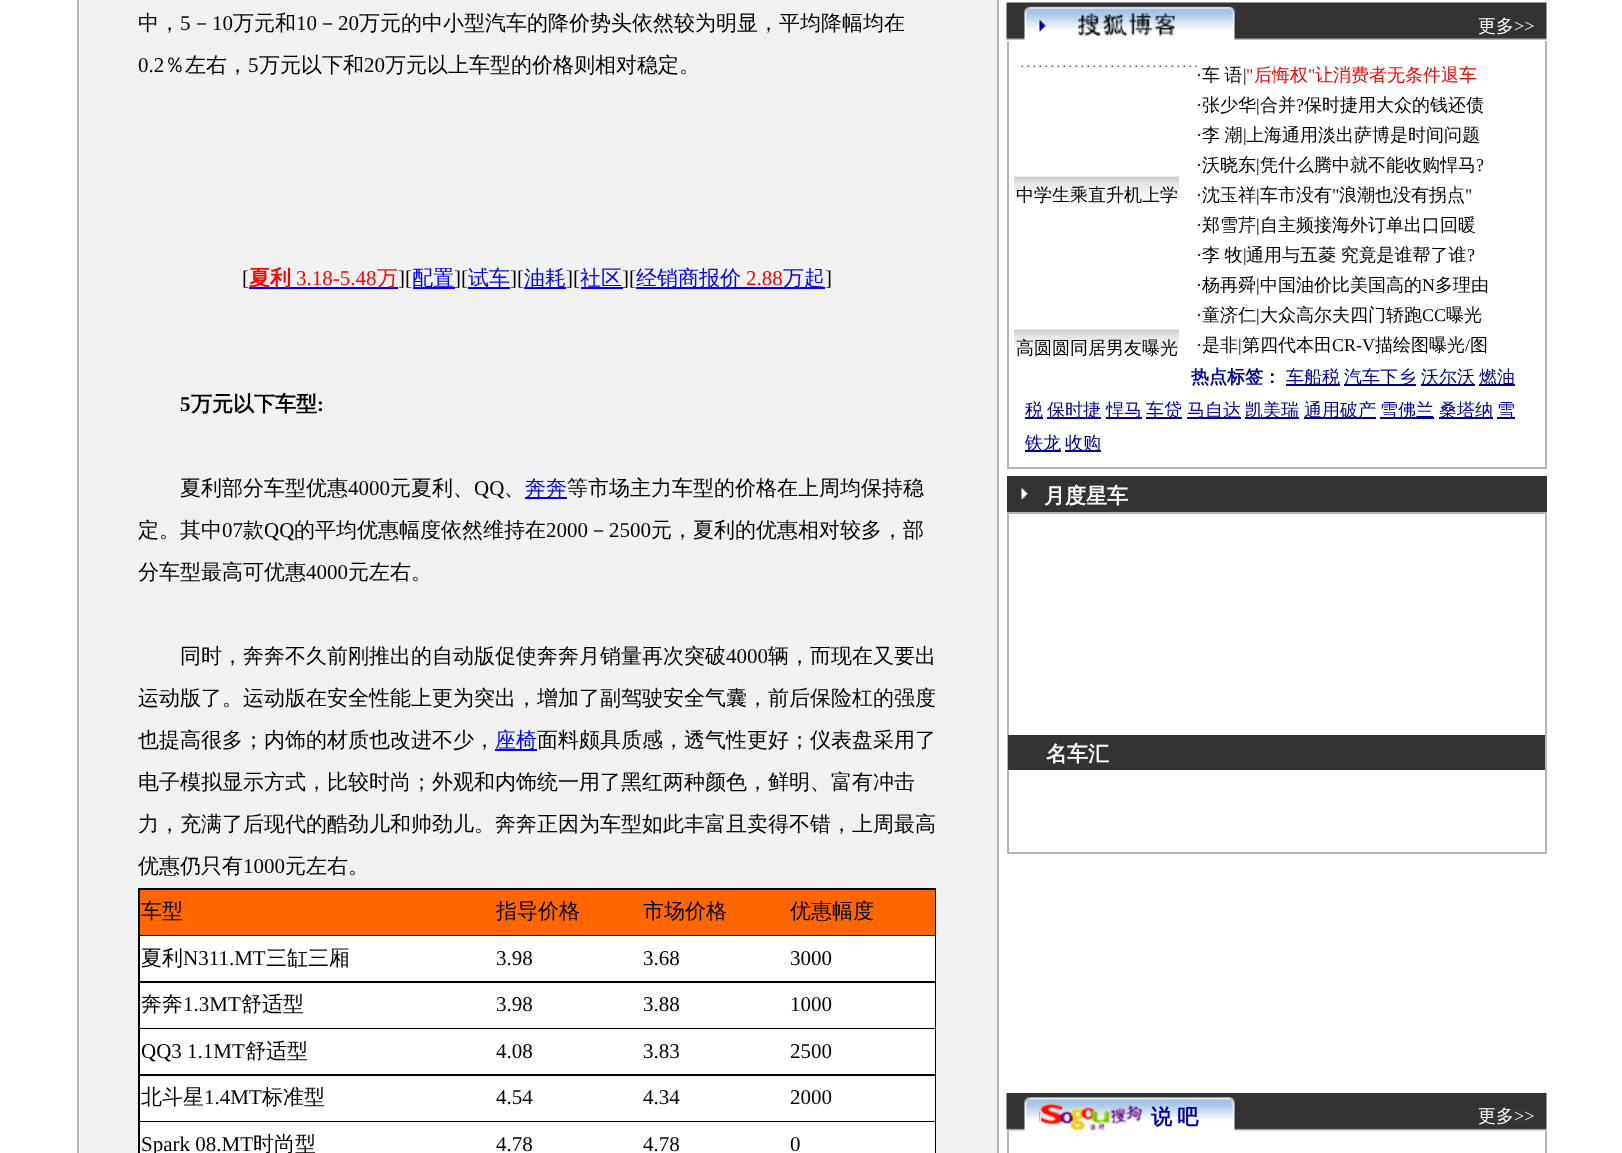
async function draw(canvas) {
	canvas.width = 1622;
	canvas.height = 1153;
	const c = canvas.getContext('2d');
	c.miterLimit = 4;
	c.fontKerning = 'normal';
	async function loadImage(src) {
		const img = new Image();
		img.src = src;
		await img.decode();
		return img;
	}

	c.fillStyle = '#fff';
	c.fillRect(0, 0, 1622, 1153);
	c.fillStyle = '#f1f1f1';
	c.beginPath();
	c.rect(78, -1, 920, 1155);
	c.fill();
	c.strokeStyle = '#b5b5b5';
	c.lineWidth = 2;
	c.stroke();
	c.font = '500 21px WenQuanYi Zen Hei';
	c.fillStyle = '#000';
	c.fillText('中，', 138, 30);
	c.font = '21px Liberation Serif';
	c.fillText('5', 180, 30);
	c.font = '500 21px WenQuanYi Zen Hei';
	c.fillText('－', 191, 30);
	c.font = '21px Liberation Serif';
	c.fillText('10', 212, 30);
	c.font = '500 21px WenQuanYi Zen Hei';
	c.fillText('万元和', 233, 30);
	c.font = '21px Liberation Serif';
	c.fillText('10', 296, 30);
	c.font = '500 21px WenQuanYi Zen Hei';
	c.fillText('－', 317, 30);
	c.font = '21px Liberation Serif';
	c.fillText('20', 338, 30);
	c.font = '500 21px WenQuanYi Zen Hei';
	c.fillText('万元的中小型汽车的降价势头依然较为明显，平均降幅均在', 359, 30);
	c.font = '21px Liberation Serif';
	c.fillText('0.2', 138, 72);
	c.font = '500 21px WenQuanYi Zen Hei';
	c.fillText('％左右，', 164, 72);
	c.font = '21px Liberation Serif';
	c.fillText('5', 248, 72);
	c.font = '500 21px WenQuanYi Zen Hei';
	c.fillText('万元以下和', 259, 72);
	c.font = '21px Liberation Serif';
	c.fillText('20', 364, 72);
	c.font = '500 21px WenQuanYi Zen Hei';
	c.fillText('万元以上车型的价格则相对稳定。', 385, 72);
	c.font = '21px Liberation Serif';
	c.fillText('[', 242, 285);
	c.fillStyle = '#00f';
	c.fillRect(249, 287, 149, 2);
	c.font = 'bold 21px WenQuanYi Zen Hei';
	c.fillStyle = '#f00';
	c.fillText('夏利', 249, 285);
	c.font = '21px Liberation Serif';
	c.fillText('3.18-5.48', 296, 285);
	c.font = '500 21px WenQuanYi Zen Hei';
	c.fillText('万', 377, 285);
	c.font = '21px Liberation Serif';
	c.fillStyle = '#000';
	c.fillText('][', 398, 285);
	c.fillStyle = '#00f';
	c.fillRect(413, 287, 42, 2);
	c.font = '500 21px WenQuanYi Zen Hei';
	c.fillText('配置', 412, 285);
	c.font = '21px Liberation Serif';
	c.fillStyle = '#000';
	c.fillText('][', 454, 285);
	c.fillStyle = '#00f';
	c.fillRect(468, 287, 42, 2);
	c.font = '500 21px WenQuanYi Zen Hei';
	c.fillText('试车', 468, 285);
	c.font = '21px Liberation Serif';
	c.fillStyle = '#000';
	c.fillText('][', 510, 285);
	c.fillStyle = '#00f';
	c.fillRect(524, 287, 42, 2);
	c.font = '500 21px WenQuanYi Zen Hei';
	c.fillText('油耗', 524, 285);
	c.font = '21px Liberation Serif';
	c.fillStyle = '#000';
	c.fillText('][', 566, 285);
	c.fillStyle = '#00f';
	c.fillRect(581, 287, 42, 2);
	c.font = '500 21px WenQuanYi Zen Hei';
	c.fillText('社区', 580, 285);
	c.font = '21px Liberation Serif';
	c.fillStyle = '#000';
	c.fillText('][', 622, 285);
	c.fillStyle = '#00f';
	c.fillRect(636, 287, 189, 2);
	c.font = '500 21px WenQuanYi Zen Hei';
	c.fillText('经销商报价', 636, 285);
	c.font = '21px Liberation Serif';
	c.fillStyle = '#f00';
	c.fillText('2.88', 746, 285);
	c.font = '500 21px WenQuanYi Zen Hei';
	c.fillStyle = '#00f';
	c.fillText('万起', 783, 285);
	c.font = '21px Liberation Serif';
	c.fillStyle = '#000';
	c.fillText(']', 825, 285);
	c.font = 'bold 21px Liberation Serif';
	c.fillText('5', 180, 411);
	c.font = 'bold 21px WenQuanYi Zen Hei';
	c.fillText('万元以下车型', 191, 411);
	c.font = 'bold 21px Liberation Serif';
	c.fillText(':', 317, 411);
	c.font = '500 21px WenQuanYi Zen Hei';
	c.fillText('夏利部分车型优惠', 180, 495);
	c.font = '21px Liberation Serif';
	c.fillText('4000', 348, 495);
	c.font = '500 21px WenQuanYi Zen Hei';
	c.fillText('元夏利、', 390, 495);
	c.font = '21px Liberation Serif';
	c.fillText('QQ', 474, 495);
	c.font = '500 21px WenQuanYi Zen Hei';
	c.fillText('、', 504, 495);
	c.fillStyle = '#00f';
	c.fillRect(525, 497, 42, 2);
	c.fillText('奔奔', 525, 495);
	c.fillStyle = '#000';
	c.fillText('等市场主力车型的价格在上周均保持稳', 567, 495);
	c.fillText('定。其中', 138, 537);
	c.font = '21px Liberation Serif';
	c.fillText('07', 222, 537);
	c.font = '500 21px WenQuanYi Zen Hei';
	c.fillText('款', 243, 537);
	c.font = '21px Liberation Serif';
	c.fillText('QQ', 264, 537);
	c.font = '500 21px WenQuanYi Zen Hei';
	c.fillText('的平均优惠幅度依然维持在', 294, 537);
	c.font = '21px Liberation Serif';
	c.fillText('2000', 546, 537);
	c.font = '500 21px WenQuanYi Zen Hei';
	c.fillText('－', 588, 537);
	c.font = '21px Liberation Serif';
	c.fillText('2500', 609, 537);
	c.font = '500 21px WenQuanYi Zen Hei';
	c.fillText('元，夏利的优惠相对较多，部', 651, 537);
	c.fillText('分车型最高可优惠', 138, 579);
	c.font = '21px Liberation Serif';
	c.fillText('4000', 306, 579);
	c.font = '500 21px WenQuanYi Zen Hei';
	c.fillText('元左右。', 348, 579);
	c.fillText('同时，奔奔不久前刚推出的自动版促使奔奔月销量再次突破', 180, 663);
	c.font = '21px Liberation Serif';
	c.fillText('4000', 726, 663);
	c.font = '500 21px WenQuanYi Zen Hei';
	for (const [text, x, y] of [
		['辆，而现在又要出', 768, 663],
		['运动版了。运动版在安全性能上更为突出，增加了副驾驶安全气囊，前后保险杠的强度', 138, 705],
		['也提高很多；内饰的材质也改进不少，', 138, 747],
	]) {
		c.fillText(text, x, y);
	}
	c.fillStyle = '#00f';
	c.fillRect(495, 749, 42, 2);
	c.fillText('座椅', 495, 747);
	c.fillStyle = '#000';
	for (const [text, x, y] of [
		['面料颇具质感，透气性更好；仪表盘采用了', 537, 747],
		['电子模拟显示方式，比较时尚；外观和内饰统一用了黑红两种颜色，鲜明、富有冲击', 138, 789],
		['力，充满了后现代的酷劲儿和帅劲儿。奔奔正因为车型如此丰富且卖得不错，上周最高', 138, 831],
		['优惠仍只有', 138, 873],
	]) {
		c.fillText(text, x, y);
	}
	c.font = '21px Liberation Serif';
	c.fillText('1000', 243, 873);
	c.font = '500 21px WenQuanYi Zen Hei';
	c.fillText('元左右。', 285, 873);
	c.fillRect(138, 888, 798, 265);
	c.fillStyle = '#f60';
	c.fillRect(140, 890, 795, 45);
	c.fillStyle = '#000';
	for (const [text, x, y] of [
		['车型', 141, 918],
		['指导价格', 496, 918],
		['市场价格', 643, 918],
		['优惠幅度', 790, 918],
	]) {
		c.fillText(text, x, y);
	}
	c.fillStyle = '#fff';
	c.fillRect(140, 936, 795, 45);
	c.fillStyle = '#000';
	c.fillText('夏利', 141, 965);
	c.font = '21px Liberation Serif';
	c.fillText('N311.MT', 183, 965);
	c.font = '500 21px WenQuanYi Zen Hei';
	c.fillText('三缸三厢', 266, 965);
	c.font = '21px Liberation Serif';
	for (const [text, x, y] of [
		['3.98', 496, 965],
		['3.68', 643, 965],
		['3000', 790, 965],
	]) {
		c.fillText(text, x, y);
	}
	c.fillStyle = '#fff';
	c.fillRect(140, 983, 795, 45);
	c.font = '500 21px WenQuanYi Zen Hei';
	c.fillStyle = '#000';
	c.fillText('奔奔', 141, 1011);
	c.font = '21px Liberation Serif';
	c.fillText('1.3MT', 183, 1011);
	c.font = '500 21px WenQuanYi Zen Hei';
	c.fillText('舒适型', 241, 1011);
	c.font = '21px Liberation Serif';
	for (const [text, x, y] of [
		['3.98', 496, 1011],
		['3.88', 643, 1011],
		['1000', 790, 1011],
	]) {
		c.fillText(text, x, y);
	}
	c.fillStyle = '#fff';
	c.fillRect(140, 1029, 795, 45);
	c.fillStyle = '#000';
	c.fillText('QQ3 1.1MT', 141, 1058);
	c.font = '500 21px WenQuanYi Zen Hei';
	c.fillText('舒适型', 245, 1058);
	c.font = '21px Liberation Serif';
	for (const [text, x, y] of [
		['4.08', 496, 1058],
		['3.83', 643, 1058],
		['2500', 790, 1058],
	]) {
		c.fillText(text, x, y);
	}
	c.fillStyle = '#fff';
	c.fillRect(140, 1076, 795, 45);
	c.font = '500 21px WenQuanYi Zen Hei';
	c.fillStyle = '#000';
	c.fillText('北斗星', 141, 1104);
	c.font = '21px Liberation Serif';
	c.fillText('1.4MT', 204, 1104);
	c.font = '500 21px WenQuanYi Zen Hei';
	c.fillText('标准型', 262, 1104);
	c.font = '21px Liberation Serif';
	for (const [text, x, y] of [
		['4.54', 496, 1104],
		['4.34', 643, 1104],
		['2000', 790, 1104],
	]) {
		c.fillText(text, x, y);
	}
	c.fillStyle = '#fff';
	c.fillRect(140, 1122, 795, 31);
	c.fillStyle = '#000';
	c.fillText('Spark 08.MT', 141, 1151);
	c.font = '500 21px WenQuanYi Zen Hei';
	c.fillText('时尚型', 253, 1151);
	c.font = '21px Liberation Serif';
	for (const [text, x, y] of [
		['4.78', 496, 1151],
		['4.78', 643, 1151],
		['0', 790, 1151],
	]) {
		c.fillText(text, x, y);
	}
	c.drawImage(await loadImage('img1.png'), 1006, 2, 541, 38);
	c.drawImage(await loadImage('img2.png'), 1078, 13, 97, 23);
	c.font = '500 18px WenQuanYi Zen Hei';
	c.fillStyle = '#fff';
	c.fillText('更多', 1478, 32);
	c.font = '18px Liberation Serif';
	c.fillText('>>', 1514, 32);
	for (const [x, y, w, h, color] of [
		[1545, 41, 2, 427, '#b5b5b5'],
		[1007, 467, 540, 2, '#b5b5b5'],
		[1007, 41, 2, 427, '#b5b5b5'],
	]) {
		c.fillStyle = color;
		c.fillRect(x, y, w, h);
	}
	c.drawImage(await loadImage('img3.png'), 1014, 176, 165, 23);
	c.font = '500 18px WenQuanYi Zen Hei';
	c.fillStyle = '#000';
	c.fillText('中学生乘直升机上学', 1016, 201);
	c.drawImage(await loadImage('img3.png'), 1014, 329, 165, 23);
	c.fillText('高圆圆同居男友曝光', 1016, 354);
	c.wordSpacing = '-1px';
	c.fillText('车 语', 1202, 81);
	c.wordSpacing = '0px';
	c.font = '18px Liberation Serif';
	c.fillText('|', 1243, 81);
	c.fillStyle = '#f00';
	c.fillText('"', 1246, 81);
	c.font = '500 18px WenQuanYi Zen Hei';
	c.fillText('后悔权', 1254, 81);
	c.font = '18px Liberation Serif';
	c.fillText('"', 1308, 81);
	c.font = '500 18px WenQuanYi Zen Hei';
	c.fillText('让消费者无条件退车', 1315, 81);
	c.font = '18px Liberation Serif';
	c.fillStyle = '#000';
	c.fillText('·', 1196, 81);
	c.fillText('·', 1196, 111);
	c.font = '500 18px WenQuanYi Zen Hei';
	c.fillText('张少华', 1202, 111);
	c.font = '18px Liberation Serif';
	c.fillText('|', 1256, 111);
	c.font = '500 18px WenQuanYi Zen Hei';
	c.fillText('合并', 1260, 111);
	c.font = '18px Liberation Serif';
	c.fillText('?', 1296, 111);
	c.font = '500 18px WenQuanYi Zen Hei';
	c.fillText('保时捷用大众的钱还债', 1304, 111);
	c.font = '18px Liberation Serif';
	c.fillText('·', 1196, 141);
	c.wordSpacing = '-1px';
	c.font = '500 18px WenQuanYi Zen Hei';
	c.fillText('李 潮', 1202, 141);
	c.wordSpacing = '0px';
	c.font = '18px Liberation Serif';
	c.fillText('|', 1243, 141);
	c.font = '500 18px WenQuanYi Zen Hei';
	c.fillText('上海通用淡出萨博是时间问题', 1246, 141);
	c.font = '18px Liberation Serif';
	c.fillText('·', 1196, 171);
	c.font = '500 18px WenQuanYi Zen Hei';
	c.fillText('沃晓东', 1202, 171);
	c.font = '18px Liberation Serif';
	c.fillText('|', 1256, 171);
	c.font = '500 18px WenQuanYi Zen Hei';
	c.fillText('凭什么腾中就不能收购悍马', 1260, 171);
	c.font = '18px Liberation Serif';
	c.fillText('?', 1476, 171);
	c.font = '500 18px WenQuanYi Zen Hei';
	c.fillText('沈玉祥', 1202, 201);
	c.font = '18px Liberation Serif';
	c.fillText('|', 1256, 201);
	c.font = '500 18px WenQuanYi Zen Hei';
	c.fillText('车市没有', 1260, 201);
	c.font = '18px Liberation Serif';
	c.fillText('"', 1332, 201);
	c.font = '500 18px WenQuanYi Zen Hei';
	c.fillText('浪潮也没有拐点', 1339, 201);
	c.font = '18px Liberation Serif';
	for (const [text, x, y] of [
		['"', 1465, 201],
		['·', 1196, 201],
		['·', 1196, 231],
	]) {
		c.fillText(text, x, y);
	}
	c.font = '500 18px WenQuanYi Zen Hei';
	c.fillText('郑雪芹', 1202, 231);
	c.font = '18px Liberation Serif';
	c.fillText('|', 1256, 231);
	c.font = '500 18px WenQuanYi Zen Hei';
	c.fillText('自主频接海外订单出口回暖', 1260, 231);
	c.font = '18px Liberation Serif';
	c.fillText('·', 1196, 261);
	c.wordSpacing = '-1px';
	c.font = '500 18px WenQuanYi Zen Hei';
	c.fillText('李 牧', 1202, 261);
	c.wordSpacing = '0px';
	c.font = '18px Liberation Serif';
	c.fillText('|', 1243, 261);
	c.wordSpacing = '-1px';
	c.font = '500 18px WenQuanYi Zen Hei';
	c.fillText('通用与五菱 究竟是谁帮了谁', 1246, 261);
	c.wordSpacing = '0px';
	c.font = '18px Liberation Serif';
	c.fillText('?', 1467, 261);
	c.fillText('·', 1196, 291);
	c.font = '500 18px WenQuanYi Zen Hei';
	c.fillText('杨再舜', 1202, 291);
	c.font = '18px Liberation Serif';
	c.fillText('|', 1256, 291);
	c.font = '500 18px WenQuanYi Zen Hei';
	c.fillText('中国油价比美国高的', 1260, 291);
	c.font = '18px Liberation Serif';
	c.fillText('N', 1422, 291);
	c.font = '500 18px WenQuanYi Zen Hei';
	c.fillText('多理由', 1435, 291);
	c.font = '18px Liberation Serif';
	c.fillText('·', 1196, 321);
	c.font = '500 18px WenQuanYi Zen Hei';
	c.fillText('童济仁', 1202, 321);
	c.font = '18px Liberation Serif';
	c.fillText('|', 1256, 321);
	c.font = '500 18px WenQuanYi Zen Hei';
	c.fillText('大众高尔夫四门轿跑', 1260, 321);
	c.font = '18px Liberation Serif';
	c.fillText('CC', 1422, 321);
	c.font = '500 18px WenQuanYi Zen Hei';
	c.fillText('曝光', 1446, 321);
	c.font = '18px Liberation Serif';
	c.fillText('·', 1196, 351);
	c.font = '500 18px WenQuanYi Zen Hei';
	c.fillText('是非', 1202, 351);
	c.font = '18px Liberation Serif';
	c.fillText('|', 1238, 351);
	c.font = '500 18px WenQuanYi Zen Hei';
	c.fillText('第四代本田', 1242, 351);
	c.font = '18px Liberation Serif';
	c.fillText('CR-V', 1332, 351);
	c.font = '500 18px WenQuanYi Zen Hei';
	c.fillText('描绘图曝光', 1375, 351);
	c.font = '18px Liberation Serif';
	c.fillText('/', 1465, 351);
	c.font = '500 18px WenQuanYi Zen Hei';
	c.fillText('图', 1470, 351);
	c.drawImage(await loadImage('img4.png'), 1017, 65, 180, 2);
	c.font = 'bold 18px WenQuanYi Zen Hei';
	c.fillStyle = '#009';
	c.fillText('热点标签：', 1191, 383);
	c.fillRect(1286, 384, 54, 2);
	c.font = '500 18px WenQuanYi Zen Hei';
	c.fillText('车船税', 1286, 383);
	c.fillRect(1344, 384, 72, 2);
	c.fillText('汽车下乡', 1344, 383);
	c.fillRect(1421, 384, 54, 2);
	c.fillText('沃尔沃', 1421, 383);
	c.fillRect(1479, 384, 36, 2);
	c.fillText('燃油', 1479, 383);
	c.fillRect(1025, 417, 18, 2);
	c.fillText('税', 1025, 416);
	c.fillRect(1047, 417, 54, 2);
	c.fillText('保时捷', 1047, 416);
	c.fillRect(1106, 417, 36, 2);
	c.fillText('悍马', 1106, 416);
	c.fillRect(1146, 417, 36, 2);
	c.fillText('车贷', 1146, 416);
	c.fillRect(1187, 417, 54, 2);
	c.fillText('马自达', 1187, 416);
	c.fillRect(1245, 417, 54, 2);
	c.fillText('凯美瑞', 1245, 416);
	c.fillRect(1304, 417, 72, 2);
	c.fillText('通用破产', 1304, 416);
	c.fillRect(1380, 417, 54, 2);
	c.fillText('雪佛兰', 1380, 416);
	c.fillRect(1439, 417, 54, 2);
	c.fillText('桑塔纳', 1439, 416);
	c.fillRect(1497, 417, 18, 2);
	c.fillText('雪', 1497, 416);
	c.fillRect(1025, 450, 36, 2);
	c.fillText('铁龙', 1025, 449);
	c.fillRect(1065, 450, 36, 2);
	c.fillText('收购', 1065, 449);
	c.fillStyle = '#333';
	c.fillRect(1007, 476, 540, 36);
	c.drawImage(await loadImage('img5.png'), 1021, 488, 7, 12);
	c.font = 'bold 21px WenQuanYi Zen Hei';
	c.fillStyle = '#fff';
	c.fillText('月度星车', 1044, 503);
	c.strokeRect(1008, 513, 538, 340);
	c.fillStyle = '#333';
	c.fillRect(1008, 735, 537, 35);
	c.fillStyle = '#fff';
	c.fillText('名车汇', 1046, 761);
	c.drawImage(await loadImage('img6.png'), 1006, 1093, 541, 38);
	c.drawImage(await loadImage('img7.png'), 1039, 1103, 104, 28);
	c.wordSpacing = '-1px';
	c.fillStyle = '#009';
	c.fillText('说 吧', 1151, 1124);
	c.wordSpacing = '0px';
	c.font = '500 18px WenQuanYi Zen Hei';
	c.fillStyle = '#fff';
	c.fillText('更多', 1478, 1122);
	c.font = '18px Liberation Serif';
	c.fillText('>>', 1514, 1122);
	c.fillStyle = '#b5b5b5';
	c.fillRect(1545, 1131, 2, 22);
	c.fillRect(1007, 1131, 2, 22);
}

draw(document.querySelector('canvas'));
